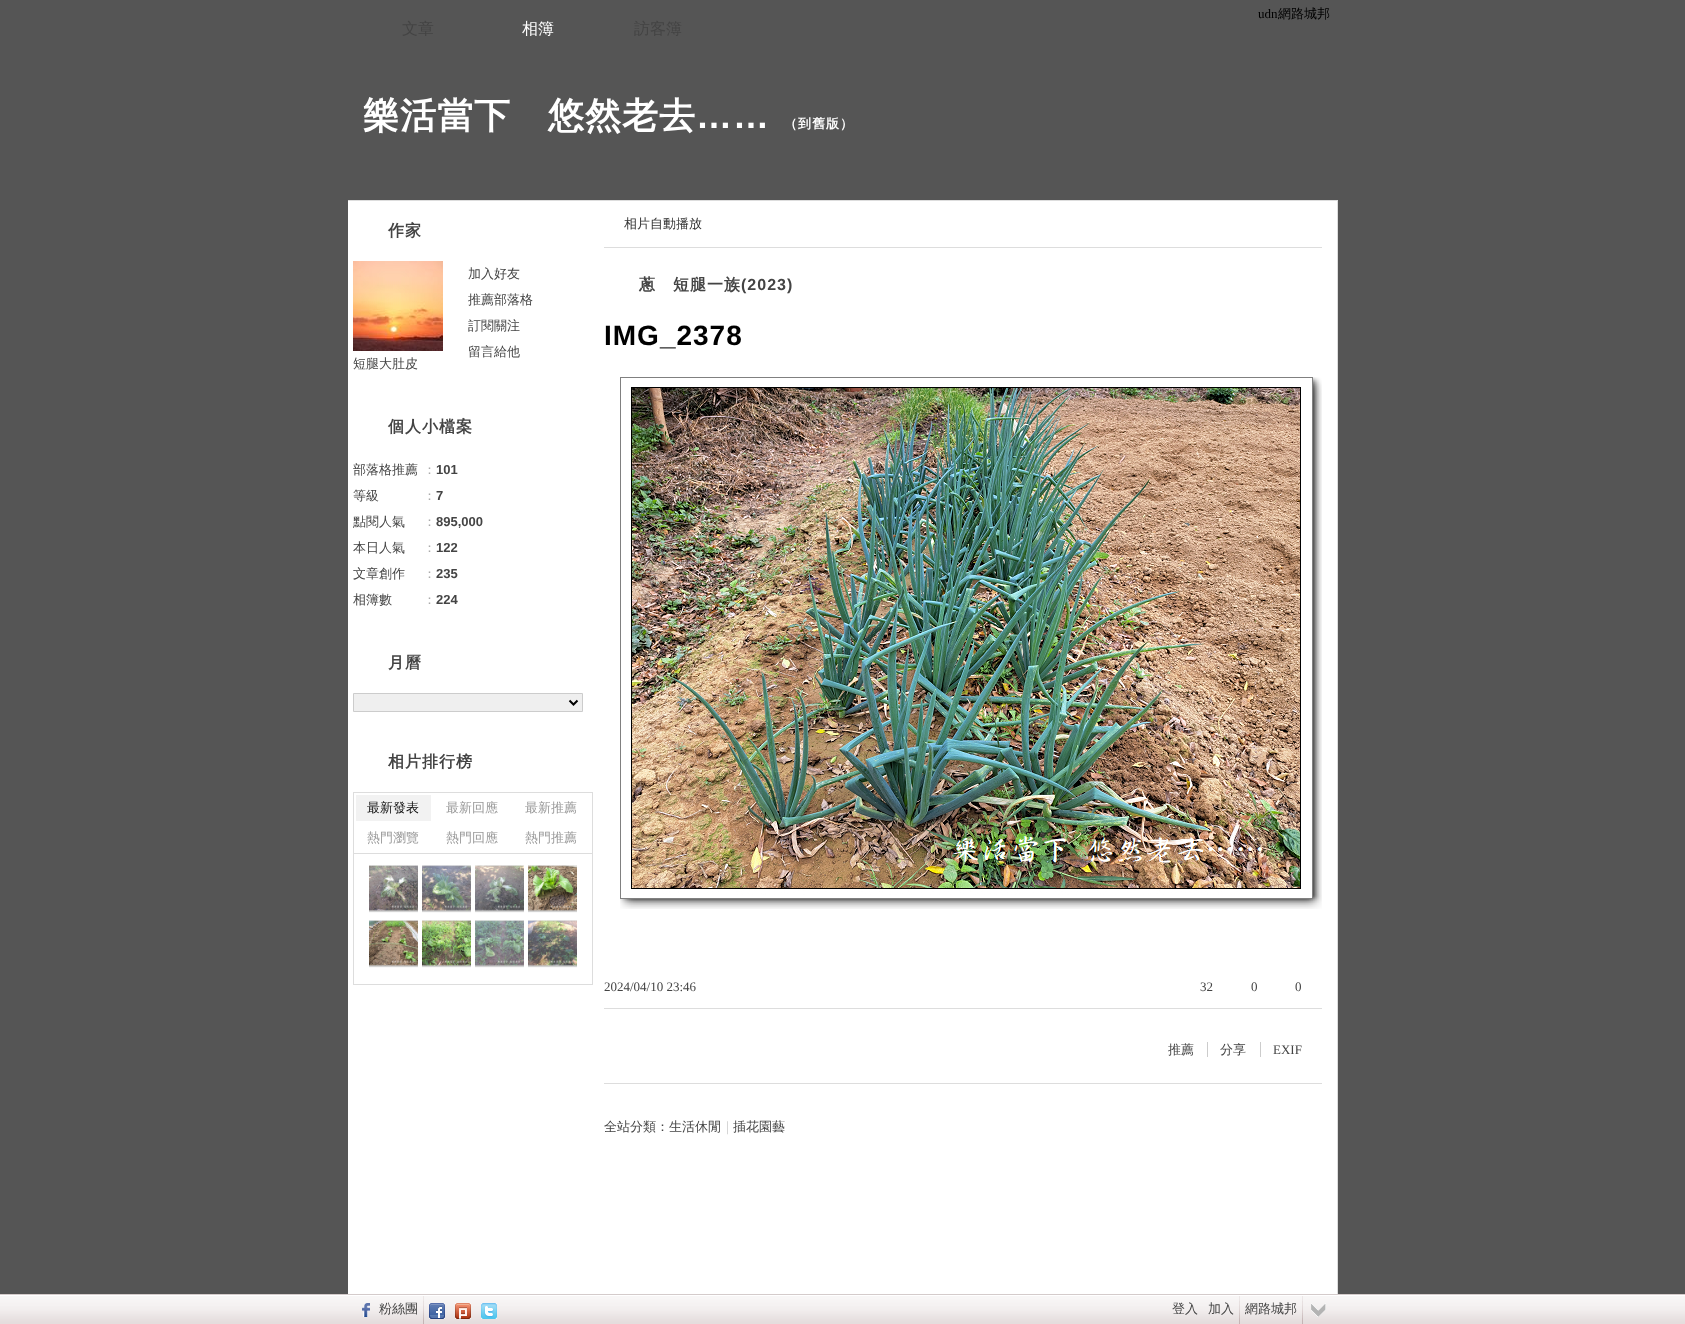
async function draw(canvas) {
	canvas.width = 1685;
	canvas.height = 1324;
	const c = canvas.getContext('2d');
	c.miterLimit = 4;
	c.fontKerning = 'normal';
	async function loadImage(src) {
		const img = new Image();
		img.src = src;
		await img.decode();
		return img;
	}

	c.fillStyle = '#555';
	c.fillRect(0, 0, 1685, 1324);
	c.font = '13px Liberation Serif';
	c.fillStyle = '#000';
	c.fillText('udn', 1258, 18);
	c.font = '500 13px WenQuanYi Zen Hei';
	c.fillText('網路城邦', 1278, 18);
	c.font = '500 16px WenQuanYi Zen Hei';
	c.fillStyle = '#444';
	c.fillText('文章', 402, 34);
	c.fillStyle = '#fff';
	c.fillText('相簿', 522, 34);
	c.fillStyle = '#444';
	c.fillText('訪客簿', 634, 34);
	c.fillStyle = '#ddd';
	c.fillRect(348, 200, 990, 1);
	c.letterSpacing = '1px';
	c.font = 'bold 36px WenQuanYi Zen Hei';
	c.fillStyle = '#fff';
	c.fillText('樂活當下　悠然老去', 363, 128);
	c.font = 'bold 36px Liberation Sans';
	c.fillText('……', 696, 128);
	c.font = 'bold 13px WenQuanYi Zen Hei';
	c.fillText('（到舊版）', 784, 128);
	c.fillRect(348, 201, 989, 1093);
	c.font = 'bold 16px WenQuanYi Zen Hei';
	c.fillStyle = '#444';
	c.fillText('作家', 388, 236);
	c.letterSpacing = '0px';
	c.font = '500 13px WenQuanYi Zen Hei';
	for (const [text, x, y] of [
		['加入好友', 468, 278],
		['推薦部落格', 468, 304],
		['訂閱關注', 468, 330],
		['留言給他', 468, 356],
	]) {
		c.fillText(text, x, y);
	}
	c.drawImage(await loadImage('img1.png'), 353, 261, 90, 90);
	c.fillText('短腿大肚皮', 353, 368);
	c.letterSpacing = '1px';
	c.font = 'bold 16px WenQuanYi Zen Hei';
	c.fillText('個人小檔案', 388, 432);
	c.letterSpacing = '0px';
	c.font = '500 13px WenQuanYi Zen Hei';
	c.fillText('部落格推薦', 353, 474);
	c.fillStyle = '#aaa';
	c.fillText('：', 423, 474);
	c.font = 'bold 13px Liberation Sans';
	c.fillStyle = '#444';
	c.fillText('101', 436, 474);
	c.font = '500 13px WenQuanYi Zen Hei';
	c.fillText('等級', 353, 500);
	c.fillStyle = '#aaa';
	c.fillText('：', 423, 500);
	c.font = 'bold 13px Liberation Sans';
	c.fillStyle = '#444';
	c.fillText('7', 436, 500);
	c.font = '500 13px WenQuanYi Zen Hei';
	c.fillText('點閱人氣', 353, 526);
	c.fillStyle = '#aaa';
	c.fillText('：', 423, 526);
	c.font = 'bold 13px Liberation Sans';
	c.fillStyle = '#444';
	c.fillText('895,000', 436, 526);
	c.font = '500 13px WenQuanYi Zen Hei';
	c.fillText('本日人氣', 353, 552);
	c.fillStyle = '#aaa';
	c.fillText('：', 423, 552);
	c.font = 'bold 13px Liberation Sans';
	c.fillStyle = '#444';
	c.fillText('122', 436, 552);
	c.font = '500 13px WenQuanYi Zen Hei';
	c.fillText('文章創作', 353, 578);
	c.fillStyle = '#aaa';
	c.fillText('：', 423, 578);
	c.font = 'bold 13px Liberation Sans';
	c.fillStyle = '#444';
	c.fillText('235', 436, 578);
	c.font = '500 13px WenQuanYi Zen Hei';
	c.fillText('相簿數', 353, 604);
	c.fillStyle = '#aaa';
	c.fillText('：', 423, 604);
	c.font = 'bold 13px Liberation Sans';
	c.fillStyle = '#444';
	c.fillText('224', 436, 604);
	c.letterSpacing = '1px';
	c.font = 'bold 16px WenQuanYi Zen Hei';
	c.fillText('月曆', 388, 668);
	c.fillStyle = '#efefef';
	c.beginPath();
	c.rect(353.5, 693.5, 229, 18);
	c.fill();
	c.strokeStyle = '#ccc';
	c.stroke();
	c.beginPath();
	c.moveTo(569.5, 700.5);
	c.lineTo(573.5, 704.5);
	c.lineTo(577.5, 700.5);
	c.strokeStyle = '#000';
	c.lineWidth = 2;
	c.stroke();
	c.fillStyle = '#444';
	c.fillText('相片排行榜', 388, 767);
	c.strokeStyle = '#ddd';
	c.lineWidth = 1;
	c.strokeRect(353.5, 792.5, 239, 61);
	c.fillStyle = '#f2f2f2';
	c.fillRect(356, 795, 75, 26);
	c.letterSpacing = '0px';
	c.font = '500 13px WenQuanYi Zen Hei';
	c.fillStyle = '#111';
	c.fillText('最新發表', 367, 812);
	c.fillStyle = '#999';
	for (const [text, x, y] of [
		['最新回應', 446, 812],
		['最新推薦', 525, 812],
		['熱門瀏覽', 367, 842],
		['熱門回應', 446, 842],
		['熱門推薦', 525, 842],
	]) {
		c.fillText(text, x, y);
	}
	for (const [x, y, w, h, color] of [
		[592, 854, 1, 131, '#ddd'],
		[353, 984, 240, 1, '#ddd'],
		[353, 854, 1, 131, '#ddd'],
	]) {
		c.fillStyle = color;
		c.fillRect(x, y, w, h);
	}
	c.drawImage(await loadImage('img2.png'), 369, 865, 49, 48);
	c.drawImage(await loadImage('img3.png'), 422, 865, 49, 48);
	c.drawImage(await loadImage('img4.png'), 475, 865, 49, 48);
	c.drawImage(await loadImage('img5.png'), 528, 865, 49, 48);
	c.drawImage(await loadImage('img6.png'), 369, 920, 49, 48);
	c.drawImage(await loadImage('img7.png'), 422, 920, 49, 48);
	c.drawImage(await loadImage('img8.png'), 475, 920, 49, 48);
	c.drawImage(await loadImage('img9.png'), 528, 920, 49, 48);
	c.fillRect(1337, 201, 1, 1093);
	c.fillRect(604, 247, 718, 1);
	c.fillStyle = '#333';
	c.fillText('相片自動播放', 624, 228);
	c.letterSpacing = '1px';
	c.font = 'bold 16px WenQuanYi Zen Hei';
	c.fillStyle = '#444';
	c.fillText('蔥　短腿一族', 639, 290);
	c.font = 'bold 16px Liberation Sans';
	c.fillText('(2023)', 741, 290);
	c.font = 'bold 28px Liberation Sans';
	c.fillStyle = '#000';
	c.fillText('IMG_2378', 604, 345);
	c.drawImage(await loadImage('img10.png'), 620, 377, 702, 532);
	c.letterSpacing = '0px';
	c.font = '13px Liberation Serif';
	c.fillStyle = '#444';
	for (const [text, x, y] of [
		['2024/04/10 23:46', 604, 991],
		['32', 1200, 991],
		['0', 1251, 991],
		['0', 1295, 991],
	]) {
		c.fillText(text, x, y);
	}
	c.fillStyle = '#ddd';
	c.fillRect(604, 1008, 718, 1);
	c.font = '500 13px WenQuanYi Zen Hei';
	c.fillStyle = '#444';
	c.fillText('推薦', 1168, 1054);
	c.fillStyle = '#ccc';
	c.fillRect(1207, 1042, 1, 15);
	c.fillStyle = '#444';
	c.fillText('分享', 1220, 1054);
	c.fillStyle = '#ccc';
	c.fillRect(1260, 1042, 1, 15);
	c.font = '13px Liberation Serif';
	c.fillStyle = '#444';
	c.fillText('EXIF', 1273, 1054);
	c.fillStyle = '#ddd';
	c.fillRect(604, 1083, 718, 1);
	c.font = '500 13px WenQuanYi Zen Hei';
	c.fillStyle = '#444';
	c.fillText('全站分類：生活休閒', 604, 1131);
	c.fillStyle = '#ccc';
	c.fillText('｜', 721, 1131);
	c.fillStyle = '#444';
	c.fillText('插花園藝', 733, 1131);
	c.drawImage(await loadImage('img11.png'), 0, 1294, 1685, 30);
	c.drawImage(await loadImage('img12.png'), 362, 1303, 8, 14);
	c.fillText('粉絲團', 379, 1313);
	c.drawImage(await loadImage('img13.png'), 423, 1296, 1, 28);
	c.drawImage(await loadImage('img14.png'), 429, 1303, 16, 16);
	c.drawImage(await loadImage('img15.png'), 455, 1303, 16, 16);
	c.drawImage(await loadImage('img16.png'), 481, 1303, 16, 16);
	c.fillText('登入', 1172, 1313);
	c.fillText('加入', 1208, 1313);
	c.drawImage(await loadImage('img13.png'), 1239, 1296, 1, 28);
	c.fillText('網路城邦', 1245, 1313);
	c.drawImage(await loadImage('img13.png'), 1302, 1296, 1, 28);
	c.drawImage(await loadImage('img17.png'), 1311, 1303, 15, 14);
}

draw(document.querySelector('canvas'));
